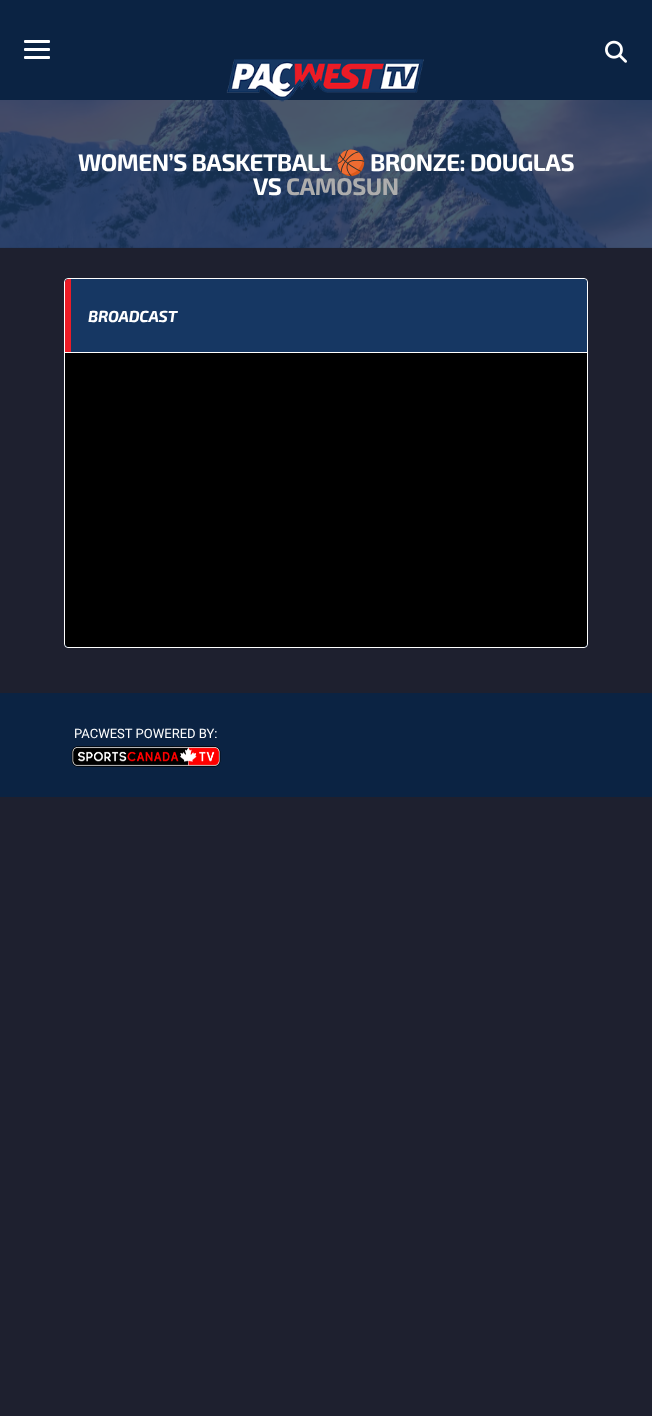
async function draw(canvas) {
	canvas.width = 652;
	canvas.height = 1416;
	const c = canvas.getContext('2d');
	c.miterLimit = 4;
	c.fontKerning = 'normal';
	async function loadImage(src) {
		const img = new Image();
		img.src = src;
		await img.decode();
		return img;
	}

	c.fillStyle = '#1e202f';
	c.fillRect(0, 0, 652, 1416);
	c.fillStyle = '#0b2343';
	c.fillRect(0, 0, 652, 100);
	c.fillStyle = '#fff';
	c.beginPath();
	c.roundRect(24, 40, 26, 3, 1);
	c.fill();
	c.beginPath();
	c.roundRect(24, 48, 26, 3, 1);
	c.fill();
	c.beginPath();
	c.roundRect(24, 56, 26, 3, 1);
	c.fill();
	c.drawImage(await loadImage('img1.png'), 605, 40, 22, 23);
	c.drawImage(await loadImage('img3.png'), 0, 100, 652, 148);
	c.drawImage(await loadImage('img2.png'), 226, 59, 198, 43);
	c.letterSpacing = '-0.5px';
	c.font = 'bold 24px "Exo 2"';
	c.fillText('WOMEN’S BASKETBALL', 78, 171);
	c.font = 'bold 24px Noto Color Emoji';
	c.fillText('🏀', 336, 171);
	c.font = 'bold 24px "Exo 2"';
	c.fillText('BRONZE: DOUGLAS', 370, 171);
	c.fillText('VS', 253, 195);
	c.fillStyle = '#adadad';
	c.fillText('CAMOSUN', 286, 195);
	c.fillStyle = '#0b2343';
	c.beginPath();
	c.roundRect(64.5, 278.5, 523, 369, 3.5);
	c.fill();
	c.strokeStyle = '#fff';
	c.stroke();
	c.save();
	c.beginPath();
	c.roundRect(65, 279, 522, 368, 3);
	c.clip();
	c.fillStyle = '#163763';
	c.beginPath();
	c.roundRect(65, 279, 522, 74, [4, 4, 0, 0]);
	c.fill();
	c.restore();
	c.fillStyle = '#fff';
	c.fillRect(65, 352, 522, 1);
	c.fillStyle = '#eb1c27';
	c.beginPath();
	c.roundRect(65, 279, 6, 73, [4, 0, 0, 0]);
	c.fill();
	c.letterSpacing = '-0.25px';
	c.font = 'italic bold 16px "Exo 2"';
	c.fillStyle = '#fff';
	c.fillText('BROADCAST', 88, 322);
	c.save();
	c.beginPath();
	c.roundRect(65, 279, 522, 368, 3);
	c.clip();
	c.fillStyle = '#000';
	c.beginPath();
	c.roundRect(65, 353, 522, 294, [0, 0, 4, 4]);
	c.fill();
	c.restore();
	c.fillStyle = '#0b2343';
	c.fillRect(0, 693, 652, 104);
	c.letterSpacing = '0px';
	c.font = '13px Roboto';
	c.fillStyle = '#fff';
	c.fillText('PACWEST POWERED BY:', 74, 738);
	c.drawImage(await loadImage('img4.png'), 71, 746, 150, 21);
}

draw(document.querySelector('canvas'));
